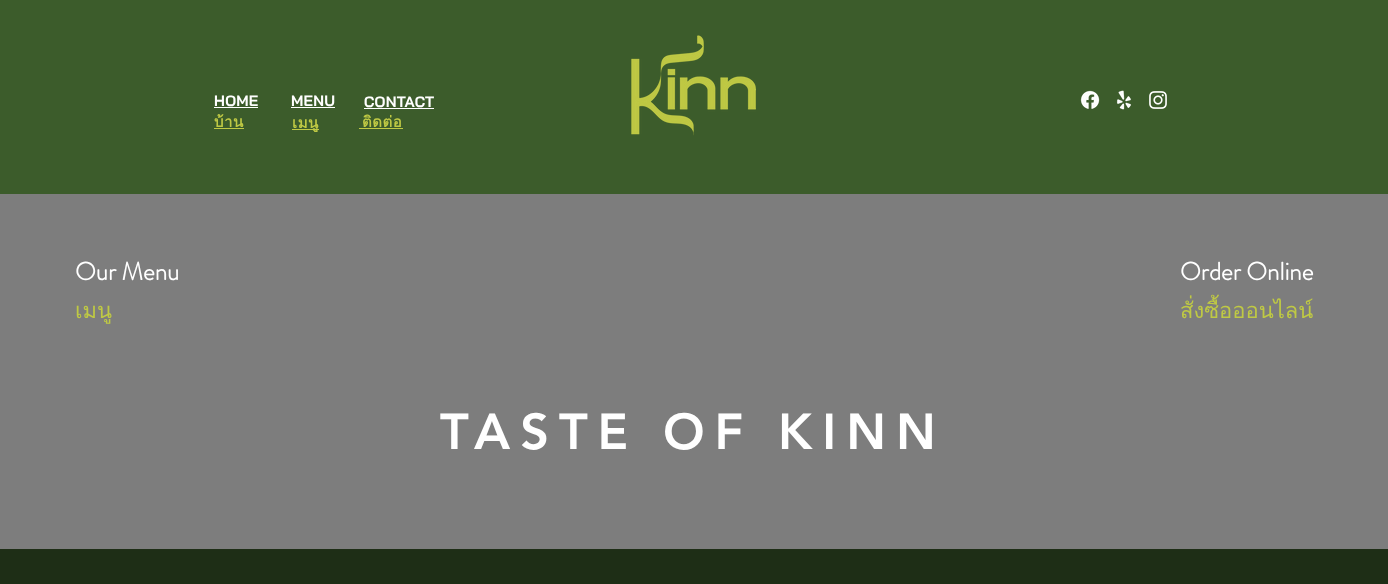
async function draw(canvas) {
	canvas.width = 1388;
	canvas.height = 584;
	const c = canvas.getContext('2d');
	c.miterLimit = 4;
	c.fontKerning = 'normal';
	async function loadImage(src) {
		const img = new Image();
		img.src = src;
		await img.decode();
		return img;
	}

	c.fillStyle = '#3c5c2b';
	c.fillRect(0, 0, 1388, 584);
	c.letterSpacing = '0.25px';
	c.font = 'bold 15px Bai Jamjuree';
	c.fillStyle = '#fff';
	c.fillText('HOME', 214, 106);
	c.fillRect(214, 107, 44, 1);
	c.fillText('MENU', 291, 106);
	c.fillRect(291, 107, 44, 1);
	c.drawImage(await loadImage('img1.png'), 631, 35, 125, 101);
	c.letterSpacing = '0.5px';
	c.font = 'bold 15px Loma';
	c.fillStyle = '#bfc944';
	c.fillText('บ้าน', 214, 127);
	c.fillRect(214, 128, 30, 1);
	c.fillText('ติดต่อ', 362, 127);
	c.fillRect(359, 128, 44, 1);
	c.letterSpacing = '0.25px';
	c.font = 'bold 15px Bai Jamjuree';
	c.fillStyle = '#fff';
	c.fillText('CONTACT', 364, 107);
	c.fillRect(364, 108, 70, 1);
	c.drawImage(await loadImage('img2.png'), 1080, 90, 20, 19);
	c.drawImage(await loadImage('img3.png'), 1116, 90, 15, 20);
	c.drawImage(await loadImage('img4.png'), 1149, 91, 18, 18);
	c.fillStyle = '#bfc944';
	c.fillRect(292, 129, 27, 1);
	c.letterSpacing = '0.5px';
	c.font = 'bold 15px Loma';
	c.fillText('เมนู', 292, 128);
	c.fillStyle = '#7d7d7d';
	c.fillRect(0, 194, 1388, 355);
	c.letterSpacing = '0px';
	c.font = 'bold 25px "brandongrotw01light"';
	c.fillStyle = '#fff';
	c.fillText('Our Menu', 75, 280);
	c.font = '22px Loma';
	c.fillStyle = '#bfc944';
	c.fillText('เมนู', 75, 318);
	c.font = 'bold 25px "brandongrotw01light"';
	c.fillStyle = '#fff';
	c.fillText('Order Online', 1180, 280);
	c.font = '22px Loma';
	c.fillStyle = '#bfc944';
	c.fillText('สั่งซื้อออนไลน์', 1180, 318);
	c.letterSpacing = '10px';
	c.font = '900 50px "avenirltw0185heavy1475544"';
	c.fillStyle = '#fff';
	c.fillText('TASTE OF KINN', 440, 449);
	c.fillStyle = '#1e2e16';
	c.fillRect(0, 549, 1388, 35);
}

draw(document.querySelector('canvas'));
